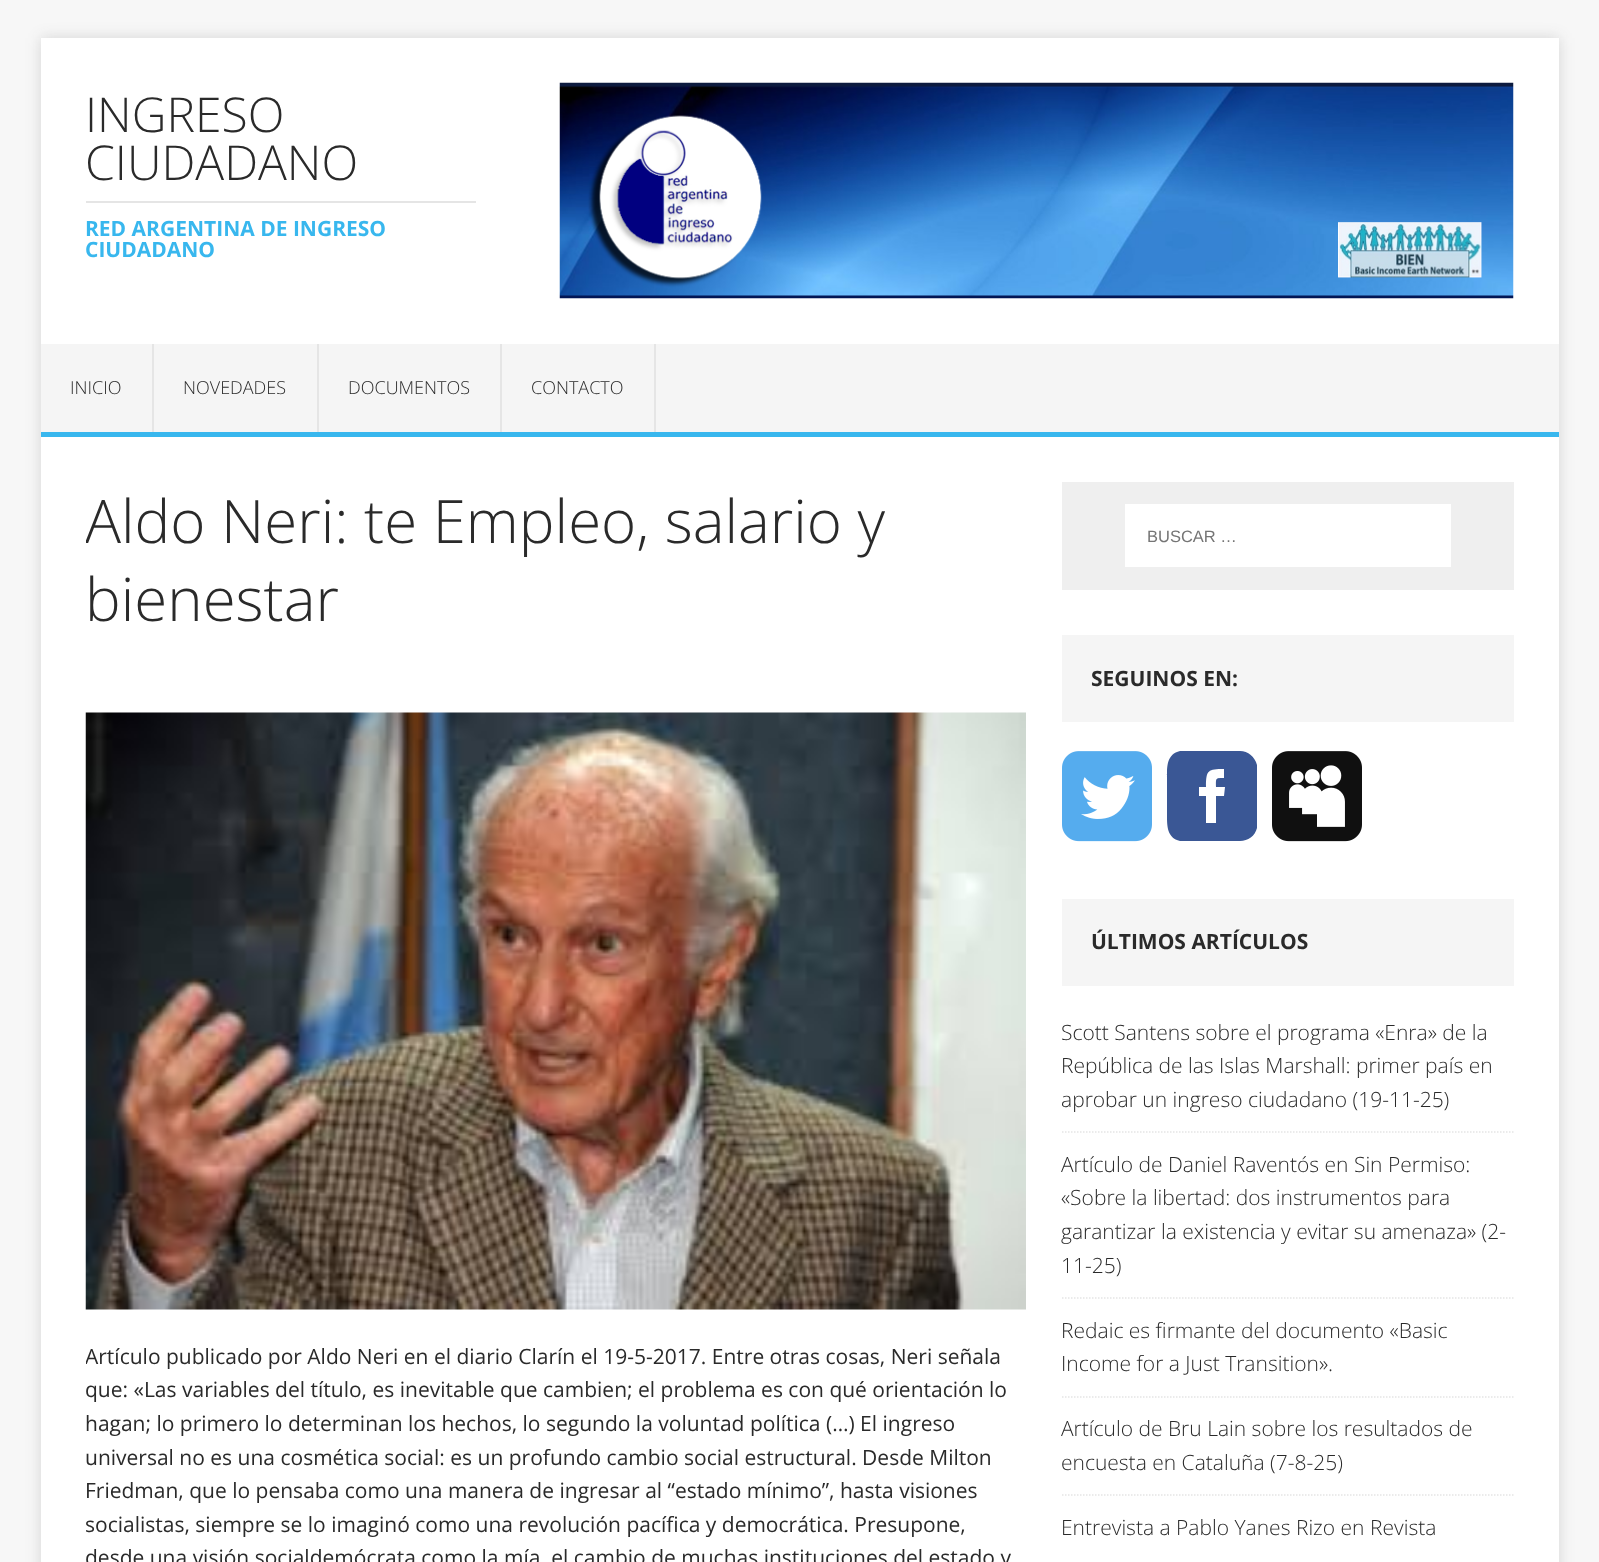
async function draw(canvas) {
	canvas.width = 1599;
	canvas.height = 1562;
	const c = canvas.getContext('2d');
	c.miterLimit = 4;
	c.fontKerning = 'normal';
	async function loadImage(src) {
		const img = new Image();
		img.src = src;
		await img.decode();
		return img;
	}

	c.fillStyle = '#f7f7f7';
	c.fillRect(0, 0, 1599, 1562);
	c.fillStyle = '#3232322b';
	c.filter = 'blur(7.5px)';
	c.beginPath();
	c.rect(41, 38, 1518, 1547);
	c.fill();
	c.filter = 'none';
	c.fillStyle = '#fff';
	c.fillRect(41, 38, 1518, 306);
	c.fillStyle = '#38b7ee';
	c.fillRect(41, 432, 1518, 5);
	c.font = '300 48px Open Sans';
	c.fillStyle = '#2a2a2a';
	c.fillText('INGRESO', 85, 132);
	c.fillText('CIUDADANO', 85, 180);
	c.fillStyle = '#e5e5e5';
	c.fillRect(86, 201, 390, 2);
	c.font = 'bold 21px Open Sans';
	c.fillStyle = '#38b7ee';
	c.fillText('RED ARGENTINA DE INGRESO', 85, 236);
	c.fillText('CIUDADANO', 85, 257);
	c.drawImage(await loadImage('img1.png'), 559, 82, 955, 217);
	c.fillStyle = '#f5f5f5';
	c.fillRect(41, 344, 1518, 88);
	c.fillStyle = '#e5e5e5';
	c.fillRect(152, 344, 2, 88);
	c.font = '300 18px Open Sans';
	c.fillStyle = '#2a2a2a';
	c.fillText('INICIO', 70, 394);
	c.fillStyle = '#e5e5e5';
	c.fillRect(317, 344, 2, 88);
	c.fillStyle = '#2a2a2a';
	c.fillText('NOVEDADES', 183, 394);
	c.fillStyle = '#e5e5e5';
	c.fillRect(500, 344, 2, 88);
	c.fillStyle = '#2a2a2a';
	c.fillText('DOCUMENTOS', 348, 394);
	c.fillStyle = '#e5e5e5';
	c.fillRect(654, 344, 2, 88);
	c.fillStyle = '#2a2a2a';
	c.fillText('CONTACTO', 531, 394);
	c.fillStyle = '#fff';
	c.fillRect(41, 437, 1518, 1125);
	c.save();
	c.beginPath();
	c.rect(86, 482, 940, 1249);
	c.clip();
	c.font = '300 60px Open Sans';
	c.fillStyle = '#2a2a2a';
	c.fillText('Aldo Neri: te Empleo, salario y', 85, 543);
	c.restore();
	c.font = '300 60px Open Sans';
	c.fillStyle = '#2a2a2a';
	c.fillText('bienestar', 85, 621);
	c.drawImage(await loadImage('img2.png'), 85, 712, 941, 598);
	c.save();
	c.beginPath();
	c.rect(86, 482, 940, 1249);
	c.clip();
	c.font = '21px Open Sans';
	c.fillText('Artículo publicado por Aldo Neri en el diario Clarín el 19-5-2017. Entre otras cosas, Neri señala', 85, 1364);
	c.restore();
	c.font = '21px Open Sans';
	for (const [text, x, y] of [
		['que: «Las variables del título, es inevitable que cambien; el problema es con qué orientación lo', 85, 1397],
		['hagan; lo primero lo determinan los hechos, lo segundo la voluntad política (…) El ingreso', 85, 1431],
		['universal no es una cosmética social: es un profundo cambio social estructural. Desde Milton', 85, 1465],
		['Friedman, que lo pensaba como una manera de ingresar al “estado mínimo”, hasta visiones', 85, 1498],
		['socialistas, siempre se lo imaginó como una revolución pacífica y democrática. Presupone,', 85, 1532],
		['desde una visión socialdemócrata como la mía, el cambio de muchas instituciones del estado y', 85, 1565],
	]) {
		c.fillText(text, x, y);
	}
	c.fillStyle = '#efefef';
	c.fillRect(1062, 482, 452, 108);
	c.fillStyle = '#fff';
	c.fillRect(1125, 504, 326, 63);
	c.font = '16.5px Liberation Sans';
	c.fillStyle = '#757575';
	c.fillText('BUSCAR …', 1147, 542);
	c.fillStyle = '#f5f5f5';
	c.fillRect(1062, 635, 452, 87);
	c.font = 'bold 21px Open Sans';
	c.fillStyle = '#2a2a2a';
	c.fillText('SEGUINOS EN:', 1091, 686);
	c.drawImage(await loadImage('img3.png'), 1062, 751, 90, 91);
	c.fillStyle = '#3a5795';
	c.beginPath();
	c.moveTo(1240, 751);
	c.lineTo(1180, 751);
	c.bezierCurveTo(1167, 754, 1167, 766, 1167, 777);
	c.lineTo(1167, 815);
	c.bezierCurveTo(1167, 826, 1167, 838, 1180, 841);
	c.lineTo(1240, 841);
	c.bezierCurveTo(1248, 841, 1255, 836, 1257, 828);
	c.lineTo(1257, 765);
	c.bezierCurveTo(1255, 757, 1248, 751, 1240, 751);
	c.closePath();
	c.moveTo(1224, 796);
	c.lineTo(1216, 796);
	c.lineTo(1216, 823);
	c.lineTo(1206, 823);
	c.lineTo(1206, 796);
	c.lineTo(1199, 796);
	c.lineTo(1199, 787);
	c.lineTo(1206, 787);
	c.bezierCurveTo(1206, 770, 1208, 769, 1224, 769);
	c.lineTo(1224, 778);
	c.bezierCurveTo(1215, 778, 1216, 778, 1216, 787);
	c.lineTo(1225, 787);
	c.closePath();
	c.fill();
	c.drawImage(await loadImage('img4.png'), 1272, 751, 90, 91);
	c.fillStyle = '#f5f5f5';
	c.fillRect(1062, 899, 452, 87);
	c.fillStyle = '#2a2a2a';
	c.fillText('ÚLTIMOS ARTÍCULOS', 1091, 949);
	c.beginPath();
	c.moveTo(1062, 1132);
	c.lineTo(1513.5, 1132);
	c.strokeStyle = '#e5e5e5';
	c.lineWidth = 1.5;
	c.setLineDash([1.5, 1.5]);
	c.stroke();
	c.font = '300 21px Open Sans';
	for (const [text, x, y] of [
		['Scott Santens sobre el programa «Enra» de la', 1061, 1040],
		['República de las Islas Marshall: primer país en', 1061, 1073],
		['aprobar un ingreso ciudadano (19-11-25)', 1061, 1107],
	]) {
		c.fillText(text, x, y);
	}
	c.beginPath();
	c.moveTo(1062, 1298);
	c.lineTo(1513.5, 1298);
	c.stroke();
	for (const [text, x, y] of [
		['Artículo de Daniel Raventós en Sin Permiso:', 1061, 1172],
		['«Sobre la libertad: dos instrumentos para', 1061, 1205],
		['garantizar la existencia y evitar su amenaza» (2-', 1061, 1239],
		['11-25)', 1061, 1273],
	]) {
		c.fillText(text, x, y);
	}
	c.beginPath();
	c.moveTo(1062, 1397);
	c.lineTo(1513.5, 1397);
	c.stroke();
	c.fillText('Redaic es firmante del documento «Basic', 1061, 1338);
	c.fillText('Income for a Just Transition».', 1061, 1371);
	c.beginPath();
	c.moveTo(1062, 1495);
	c.lineTo(1513.5, 1495);
	c.stroke();
	for (const [text, x, y] of [
		['Artículo de Bru Lain sobre los resultados de', 1061, 1436],
		['encuesta en Cataluña (7-8-25)', 1061, 1470],
		['Entrevista a Pablo Yanes Rizo en Revista', 1061, 1535],
	]) {
		c.fillText(text, x, y);
	}
}

draw(document.querySelector('canvas'));
